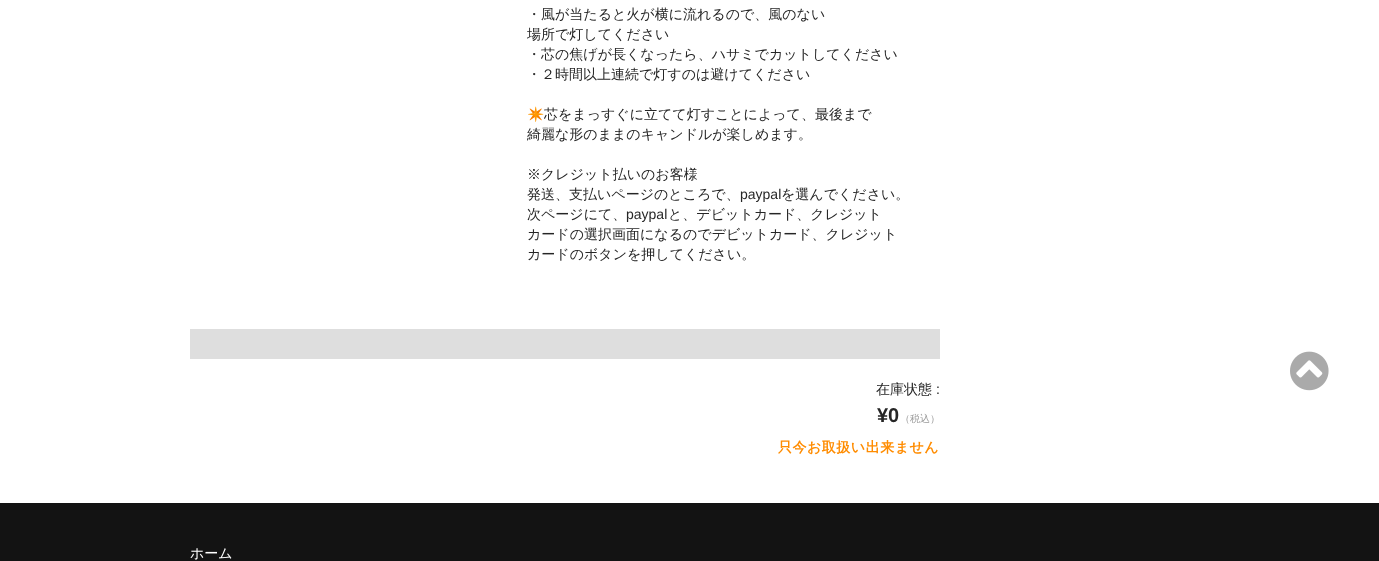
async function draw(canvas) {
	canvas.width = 1379;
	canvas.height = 561;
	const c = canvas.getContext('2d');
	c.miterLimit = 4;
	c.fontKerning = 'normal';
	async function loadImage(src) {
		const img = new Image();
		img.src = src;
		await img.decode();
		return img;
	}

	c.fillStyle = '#fff';
	c.fillRect(0, 0, 1379, 561);
	c.font = '500 14px WenQuanYi Zen Hei';
	c.fillStyle = '#262626';
	for (const [text, x, y] of [
		['・風が当たると火が横に流れるので、風のない', 527, 19],
		['場所で灯してください', 527, 39],
		['・芯の焦げが長くなったら、ハサミでカットしてください', 527, 59],
		['・２時間以上連続で灯すのは避けてください', 527, 79],
	]) {
		c.fillText(text, x, y);
	}
	c.font = '14px Noto Color Emoji';
	c.fillText('✴️', 527, 119);
	c.font = '500 14px WenQuanYi Zen Hei';
	for (const [text, x, y] of [
		['芯をまっすぐに立てて灯すことによって、最後まで', 544, 119],
		['綺麗な形のままのキャンドルが楽しめます。', 527, 139],
		['※クレジット払いのお客様', 527, 179],
		['発送、支払いページのところで、', 527, 199],
	]) {
		c.fillText(text, x, y);
	}
	c.font = '14px Liberation Sans';
	c.fillText('paypal', 740, 199);
	c.font = '500 14px WenQuanYi Zen Hei';
	c.fillText('を選んでください。', 781, 199);
	c.fillText('次ページにて、', 527, 219);
	c.font = '14px Liberation Sans';
	c.fillText('paypal', 626, 219);
	c.font = '500 14px WenQuanYi Zen Hei';
	for (const [text, x, y] of [
		['と、デビットカード、クレジット', 668, 219],
		['カードの選択画面になるのでデビットカード、クレジット', 527, 239],
		['カードのボタンを押してください。', 527, 259],
	]) {
		c.fillText(text, x, y);
	}
	c.fillStyle = '#dedede';
	c.fillRect(190, 329, 750, 30);
	c.fillStyle = '#262626';
	c.fillText('在庫状態', 876, 394);
	c.font = '14px Liberation Sans';
	c.fillText(':', 936, 394);
	c.font = 'bold 20px Liberation Sans';
	c.fillText('¥0', 877, 422);
	c.font = '500 10px WenQuanYi Zen Hei';
	c.fillStyle = '#999';
	c.fillText('（税込）', 900, 422);
	c.letterSpacing = '0.5px';
	c.font = 'bold 14px WenQuanYi Zen Hei';
	c.fillStyle = '#ff8c00';
	c.fillText('只今お取扱い出来ません', 778, 452);
	c.drawImage(await loadImage('img1.png'), 1290, 351, 39, 40);
	c.fillStyle = '#131313';
	c.fillRect(0, 503, 1379, 58);
	c.letterSpacing = '0px';
	c.font = '500 14px WenQuanYi Zen Hei';
	c.fillStyle = '#fff';
	c.fillText('ホーム', 190, 558);
}

draw(document.querySelector('canvas'));
